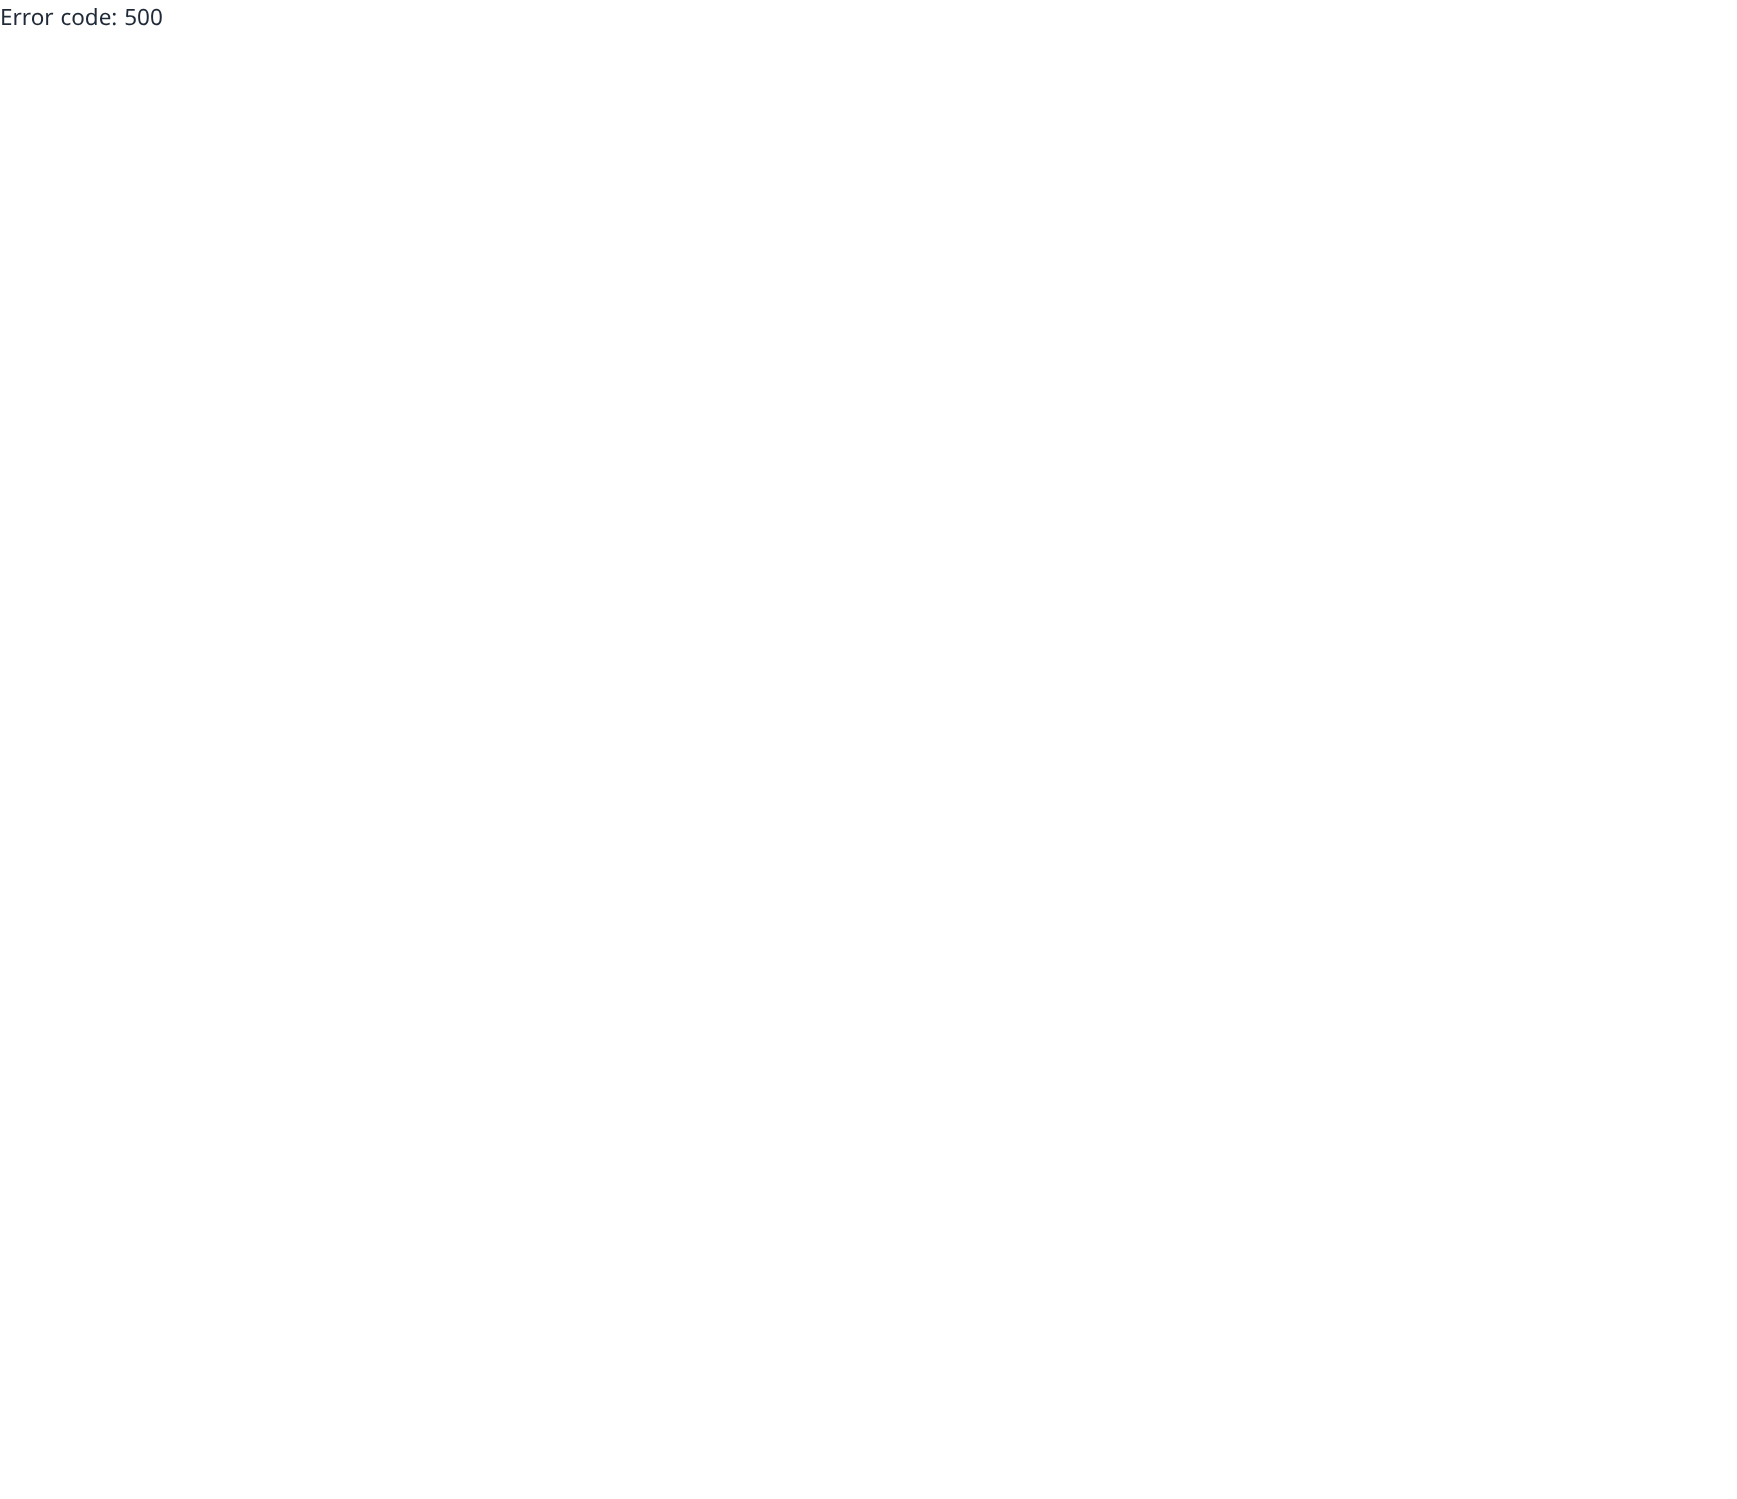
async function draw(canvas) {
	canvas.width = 1737;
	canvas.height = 1499;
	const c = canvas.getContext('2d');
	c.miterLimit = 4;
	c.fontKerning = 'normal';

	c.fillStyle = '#fff';
	c.fillRect(0, 0, 1737, 1499);
	c.wordSpacing = '1px';
	c.font = '22.5px Noto Sans';
	c.fillStyle = '#1f2937';
	c.fillText('Error code: 500', 0, 25);
}

draw(document.querySelector('canvas'));
